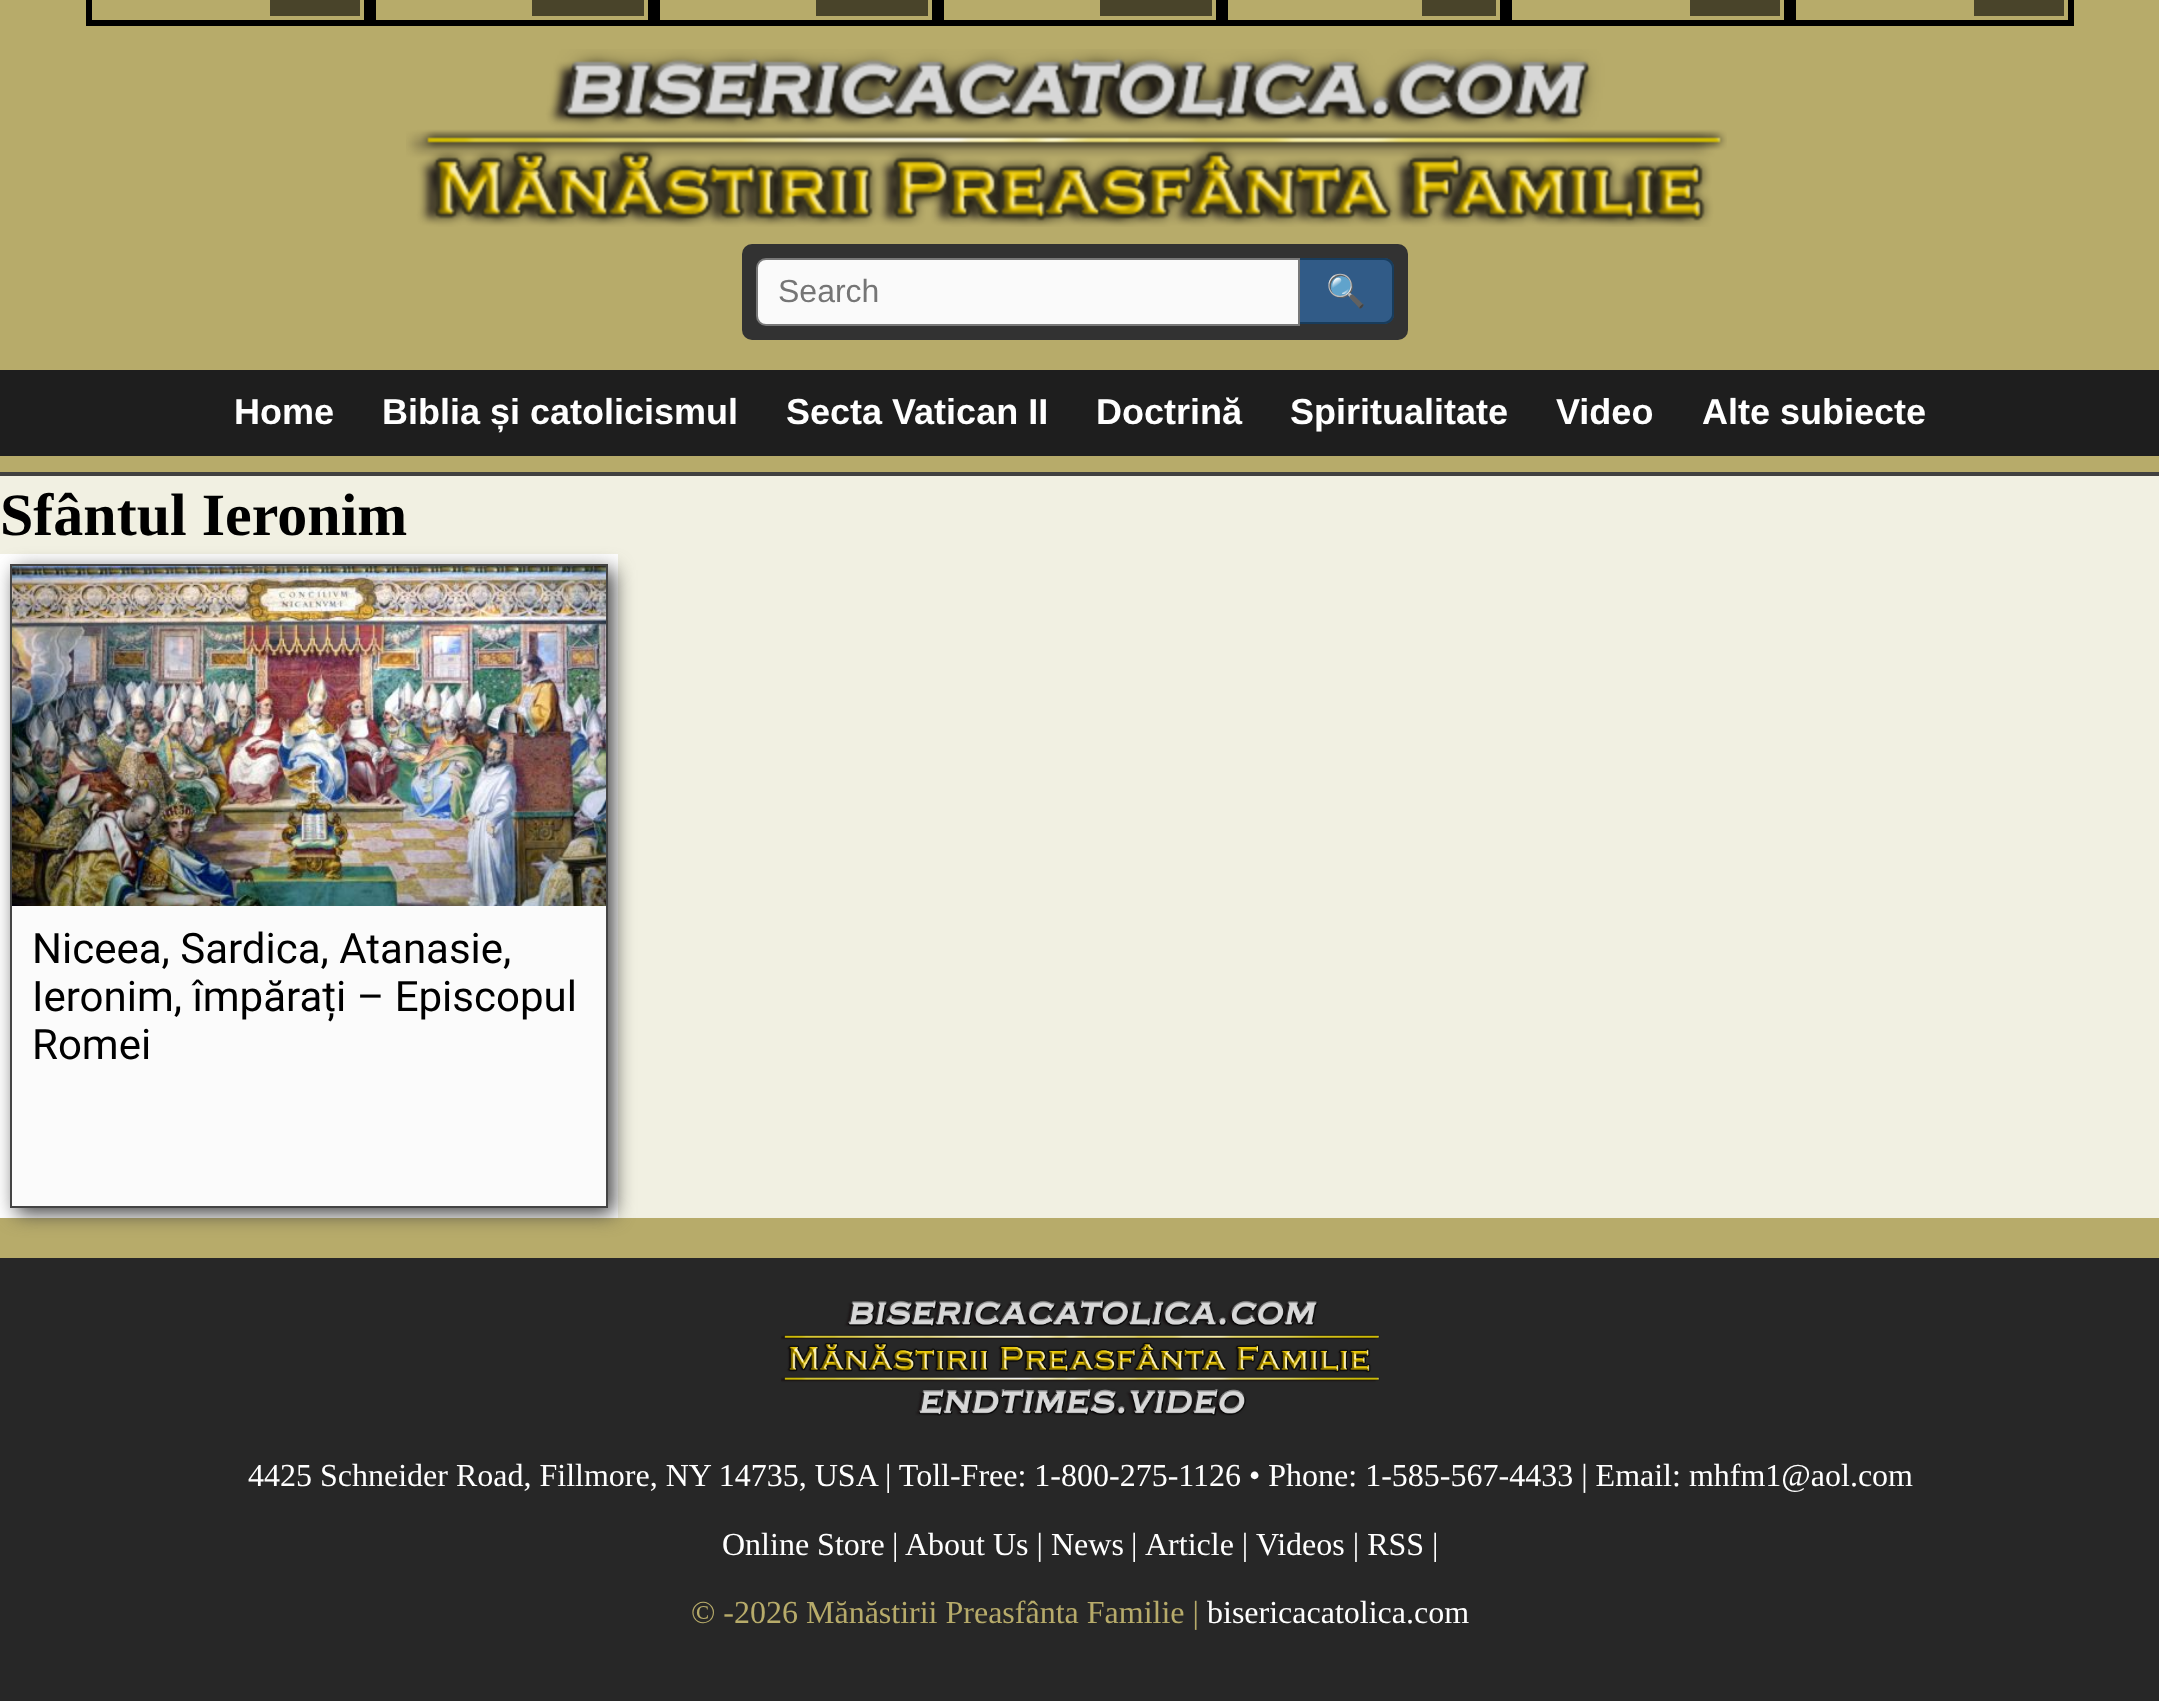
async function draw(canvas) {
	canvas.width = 2159;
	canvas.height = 1701;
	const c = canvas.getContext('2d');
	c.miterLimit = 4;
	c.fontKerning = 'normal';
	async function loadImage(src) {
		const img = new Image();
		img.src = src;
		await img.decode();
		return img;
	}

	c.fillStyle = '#b7ab6a';
	c.fillRect(0, 0, 2159, 1701);
	c.strokeStyle = '#000';
	c.lineWidth = 6;
	c.strokeRect(89, -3, 278, 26);
	c.fillStyle = '#49442a';
	c.fillRect(270, 0, 90, 16);
	c.strokeRect(373, -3, 278, 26);
	c.fillRect(532, 0, 112, 16);
	c.strokeRect(657, -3, 278, 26);
	c.fillRect(816, 0, 112, 16);
	c.strokeRect(941, -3, 278, 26);
	c.fillRect(1100, 0, 112, 16);
	c.strokeRect(1225, -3, 278, 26);
	c.fillRect(1422, 0, 74, 16);
	c.strokeRect(1509, -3, 278, 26);
	c.fillRect(1690, 0, 90, 16);
	c.strokeRect(1793, -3, 278, 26);
	c.fillRect(1974, 0, 90, 16);
	c.drawImage(await loadImage('img1.png'), 406, 49, 1321, 178);
	c.fillStyle = '#323232';
	c.beginPath();
	c.roundRect(742, 244, 666, 96, 10);
	c.fill();
	c.fillStyle = '#fafafa';
	c.beginPath();
	c.roundRect(757, 259, 542, 66, [9, 0, 0, 9]);
	c.fill();
	c.strokeStyle = '#787878';
	c.lineWidth = 2;
	c.stroke();
	c.font = '32px Liberation Sans';
	c.fillStyle = '#757575';
	c.fillText('Search', 778, 302);
	c.fillStyle = '#315b87';
	c.beginPath();
	c.roundRect(1300, 258, 94, 66, [0, 10, 10, 0]);
	c.fill();
	c.fillStyle = '#183c5c';
	c.beginPath();
	c.moveTo(1300, 258);
	c.lineTo(1384, 258);
	c.bezierCurveTo(1390, 258, 1394, 262, 1394, 268);
	c.lineTo(1394, 314);
	c.bezierCurveTo(1394, 320, 1390, 324, 1384, 324);
	c.lineTo(1300, 324);
	c.closePath();
	c.moveTo(1300, 260);
	c.lineTo(1384, 260);
	c.bezierCurveTo(1388, 260, 1392, 264, 1392, 268);
	c.lineTo(1392, 314);
	c.bezierCurveTo(1392, 318, 1388, 322, 1384, 322);
	c.lineTo(1300, 322);
	c.closePath();
	c.fill('evenodd');
	c.font = '32px Noto Color Emoji';
	c.fillStyle = '#c8c8c8';
	c.fillText('🔍', 1326, 302);
	c.fillStyle = '#1e1e1e';
	c.fillRect(0, 370, 2159, 86);
	c.font = 'bold 36px Liberation Sans';
	c.fillStyle = '#fff';
	for (const [text, x, y] of [
		['Home', 234, 424],
		['Biblia și catolicismul', 382, 424],
		['Secta Vatican II', 786, 424],
		['Doctrină', 1096, 424],
		['Spiritualitate', 1290, 424],
		['Video', 1556, 424],
		['Alte subiecte', 1702, 424],
	]) {
		c.fillText(text, x, y);
	}
	c.fillStyle = '#f1f0e2';
	c.fillRect(0, 476, 2159, 742);
	c.fillStyle = '#404040';
	c.fillRect(0, 472, 2159, 4);
	c.font = 'bold 60px Liberation Serif';
	c.fillStyle = '#000';
	c.fillText('Sfântul Ieronim', 0, 535);
	c.fillStyle = '#fff';
	c.fillRect(0, 554, 618, 664);
	c.fillStyle = '#444';
	c.filter = 'blur(10px)';
	c.beginPath();
	c.rect(16, 570, 598, 644);
	c.fill();
	c.filter = 'none';
	c.fillStyle = '#fbfbfb';
	c.fillRect(12, 906, 594, 300);
	c.strokeStyle = '#444';
	c.strokeRect(11, 565, 596, 642);
	c.drawImage(await loadImage('img2.png'), 12, 566, 594, 340);
	c.font = '42px Roboto';
	c.fillStyle = '#000';
	for (const [text, x, y] of [
		['Niceea, Sardica, Atanasie,', 32, 963],
		['Ieronim, împărați – Episcopul', 32, 1011],
		['Romei', 32, 1059],
	]) {
		c.fillText(text, x, y);
	}
	c.fillStyle = '#272727';
	c.fillRect(0, 1258, 2159, 443);
	c.drawImage(await loadImage('img3.png'), 781, 1300, 599, 116);
	c.font = '32px Liberation Serif';
	c.fillStyle = '#fff';
	for (const [text, x, y] of [
		['4425 Schneider Road, Fillmore, NY 14735, USA | Toll-Free: 1-800-275-1126 • Phone: 1-585-567-4433 | Email: mhfm1@aol.com', 248, 1486],
		['Online Store', 722, 1555],
		['|', 892, 1555],
		['About Us | News', 905, 1555],
		['|', 1131, 1555],
		['Article |', 1145, 1555],
		['Videos | RSS |', 1256, 1555],
	]) {
		c.fillText(text, x, y);
	}
	c.fillStyle = '#b7ab6a';
	c.fillText('© -2026 Mănăstirii Preasfânta Familie |', 691, 1623);
	c.fillStyle = '#fff';
	c.fillText('bisericacatolica.com', 1207, 1623);
}

draw(document.querySelector('canvas'));
